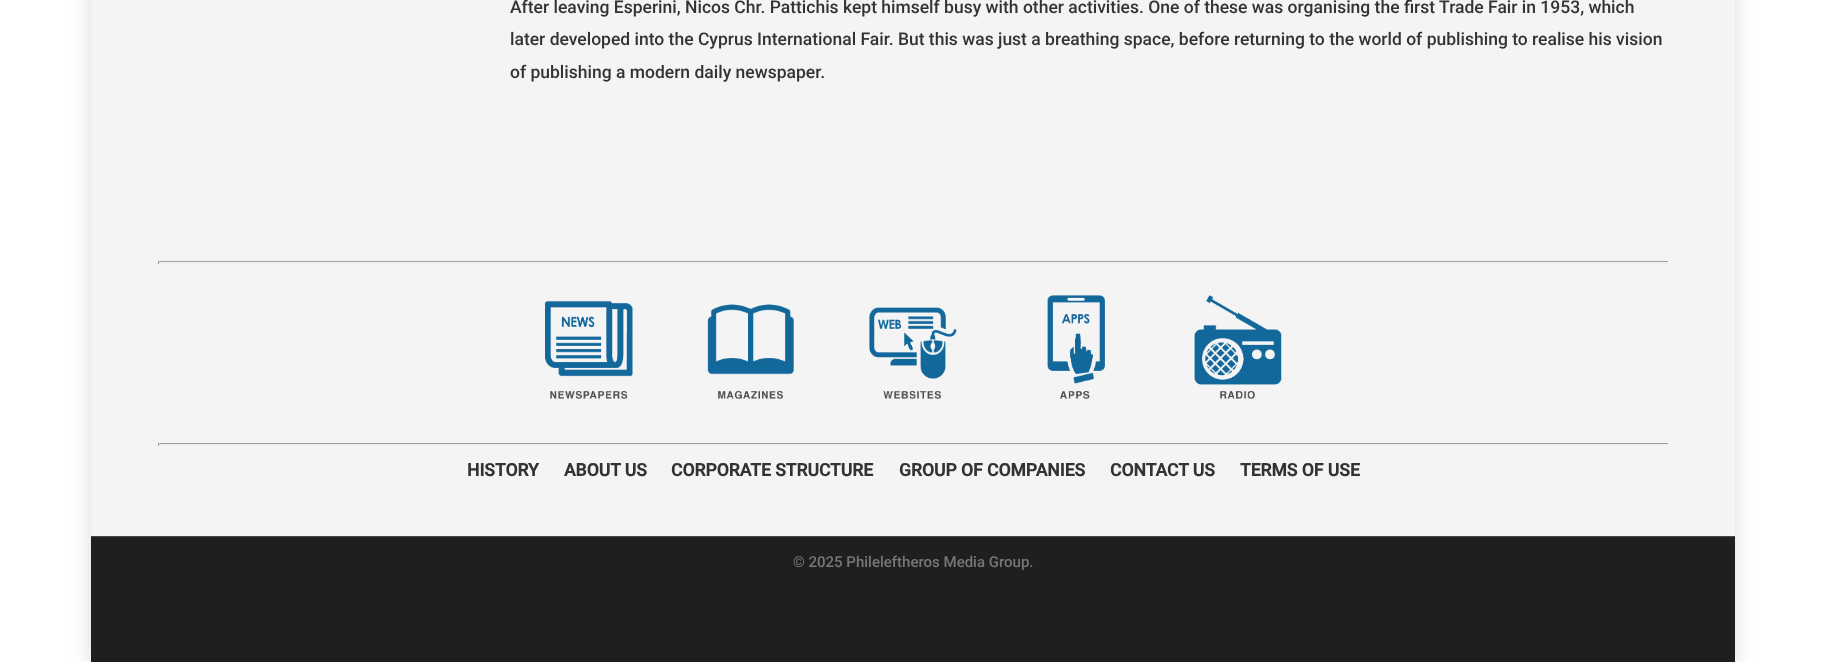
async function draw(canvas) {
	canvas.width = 1826;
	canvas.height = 662;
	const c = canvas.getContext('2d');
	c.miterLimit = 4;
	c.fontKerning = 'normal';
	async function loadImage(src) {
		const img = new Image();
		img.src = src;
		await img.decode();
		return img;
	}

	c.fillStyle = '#fff';
	c.fillRect(0, 0, 1826, 662);
	c.fillStyle = '#00000026';
	c.filter = 'blur(9.5px)';
	c.beginPath();
	c.rect(91, -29, 1644, 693);
	c.fill();
	c.filter = 'none';
	c.fillStyle = '#f4f4f4';
	c.fillRect(91, 0, 1644, 536);
	c.font = '500 17.5px Roboto';
	c.fillStyle = '#333';
	for (const [text, x, y] of [
		['After leaving Esperini, Nicos Chr. Pattichis kept himself busy with other activities. One of these was organising the first Trade Fair in 1953, which', 510, 13],
		['later developed into the Cyprus International Fair. But this was just a breathing space, before returning to the world of publishing to realise his vision', 510, 45],
		['of publishing a modern daily newspaper.', 510, 78],
	]) {
		c.fillText(text, x, y);
	}
	for (const [x, y, w, h, color] of [
		[158, 261, 1511, 1, '#9f9f9f'],
		[1668, 261, 1, 3, '#eee'],
		[158, 263, 1511, 1, '#eee'],
		[158, 261, 1, 3, '#9f9f9f'],
	]) {
		c.fillStyle = color;
		c.fillRect(x, y, w, h);
	}
	c.drawImage(await loadImage('img1.png'), 545, 300, 88, 99);
	c.drawImage(await loadImage('img2.png'), 707, 304, 87, 95);
	c.drawImage(await loadImage('img3.png'), 869, 307, 88, 92);
	c.drawImage(await loadImage('img4.png'), 1047, 295, 58, 104);
	c.drawImage(await loadImage('img5.png'), 1194, 295, 88, 104);
	for (const [x, y, w, h, color] of [
		[158, 443, 1511, 1, '#9f9f9f'],
		[1668, 443, 1, 3, '#eee'],
		[158, 444, 1511, 1, '#eee'],
		[158, 443, 1, 3, '#9f9f9f'],
	]) {
		c.fillStyle = color;
		c.fillRect(x, y, w, h);
	}
	c.font = 'bold 17.5px Roboto';
	c.fillStyle = '#333';
	for (const [text, x, y] of [
		['HISTORY', 467, 476],
		['ABOUT US', 564, 476],
		['CORPORATE STRUCTURE', 671, 476],
		['GROUP OF COMPANIES', 899, 476],
		['CONTACT US', 1110, 476],
		['TERMS OF USE', 1240, 476],
	]) {
		c.fillText(text, x, y);
	}
	c.fillStyle = '#1f1f1f';
	c.fillRect(91, 537, 1644, 125);
	c.fillStyle = '#474747';
	c.fillRect(91, 536, 1644, 1);
	c.font = '500 15px Roboto';
	c.fillStyle = '#777';
	c.fillText('© 2025 Phileleftheros Media Group.', 793, 567);
}

draw(document.querySelector('canvas'));
